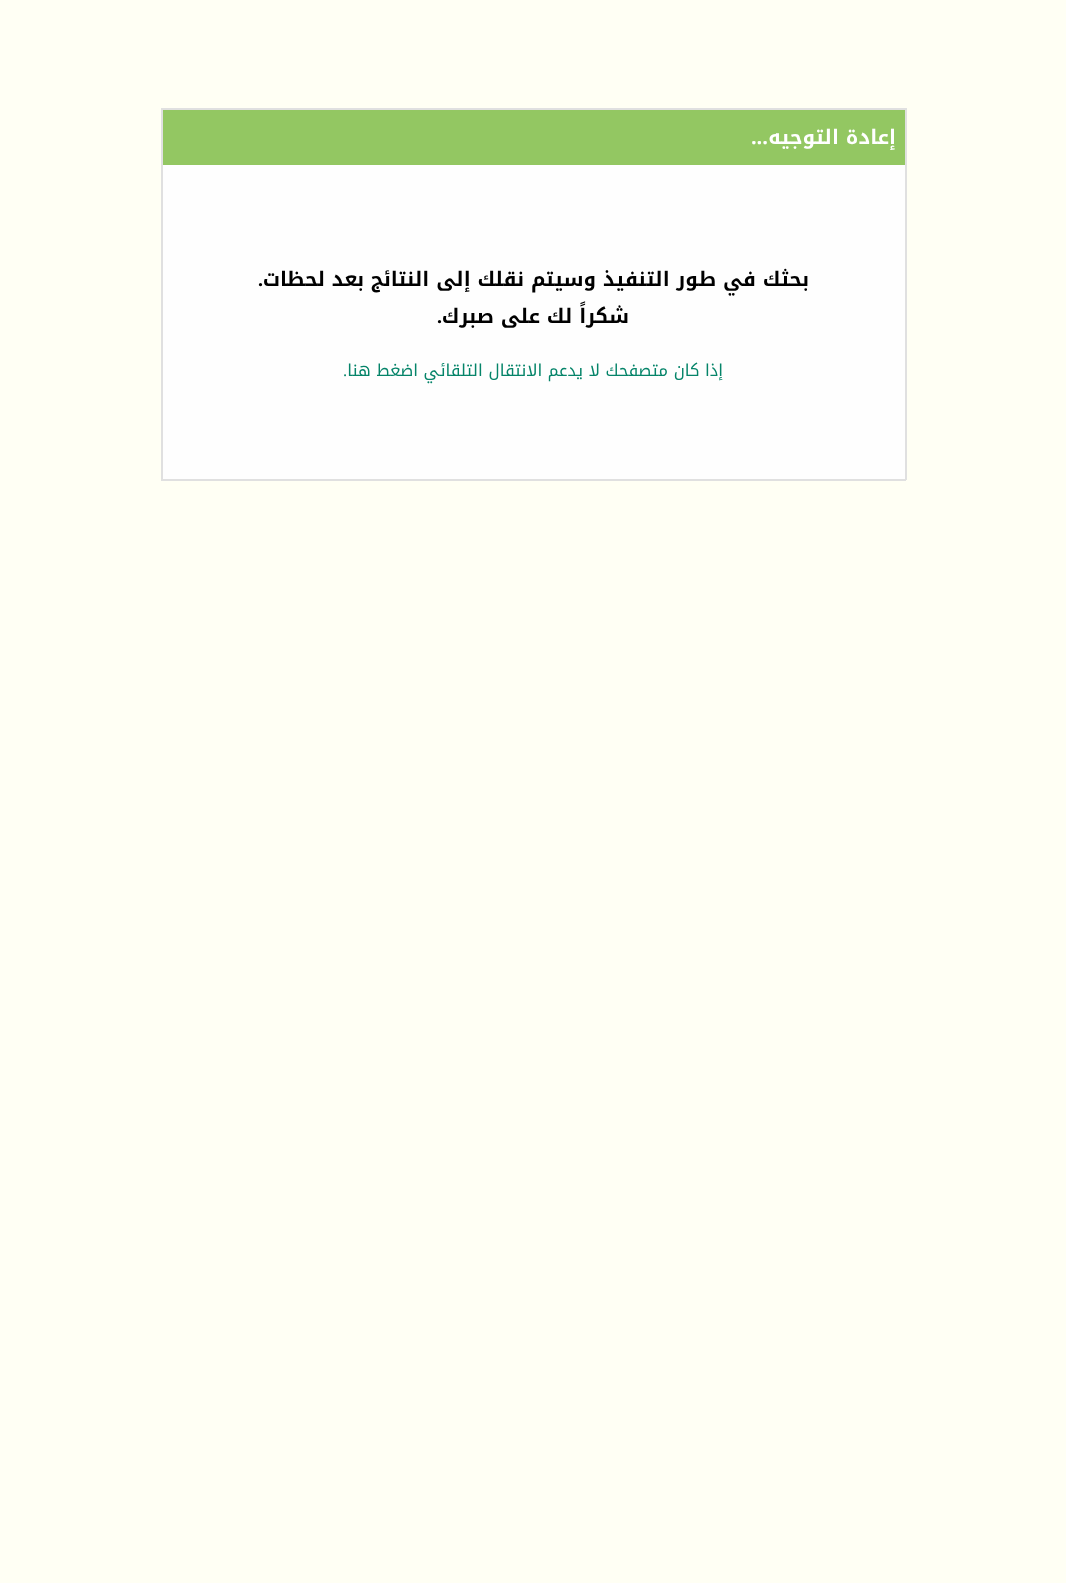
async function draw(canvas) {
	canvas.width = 1066;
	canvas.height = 1583;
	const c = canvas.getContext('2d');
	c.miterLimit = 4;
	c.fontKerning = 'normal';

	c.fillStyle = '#fffff4';
	c.fillRect(0, 0, 1066, 1583);
	for (const [x, y, w, h, color] of [
		[161, 108, 745, 2, '#e0e0e0'],
		[905, 108, 2, 372, '#e0e0e0'],
		[161, 479, 745, 2, '#e0e0e0'],
		[161, 108, 2, 372, '#e0e0e0'],
		[163, 110, 742, 55, '#93c762'],
	]) {
		c.fillStyle = color;
		c.fillRect(x, y, w, h);
	}
	c.direction = 'rtl';
	c.font = 'bold 20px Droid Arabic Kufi';
	c.fillStyle = '#fff';
	c.fillText('إعادة التوجيه', 896, 144);
	c.font = 'bold 20px Open Sans';
	c.fillText('...', 768, 144);
	c.fillStyle = '#fefefe';
	c.fillRect(163, 165, 742, 314);
	c.font = 'bold 20px Droid Arabic Kufi';
	c.fillStyle = '#000';
	c.fillText('بحثك في طور التنفيذ وسيتم نقلك إلى النتائج بعد لحظات', 809, 286);
	c.font = 'bold 20px Liberation Serif';
	c.fillText('.', 263, 286);
	c.font = 'bold 20px Droid Arabic Kufi';
	c.fillText('شكراً لك على صبرك', 629, 323);
	c.font = 'bold 20px Liberation Serif';
	c.fillText('.', 442, 323);
	c.font = '16.5px Droid Arabic Kufi';
	c.fillStyle = '#058469';
	c.fillText('إذا كان متصفحك لا يدعم الانتقال التلقائي اضغط هنا', 723, 376);
	c.font = '16.5px Liberation Serif';
	c.fillText('.', 347, 376);
}

draw(document.querySelector('canvas'));
